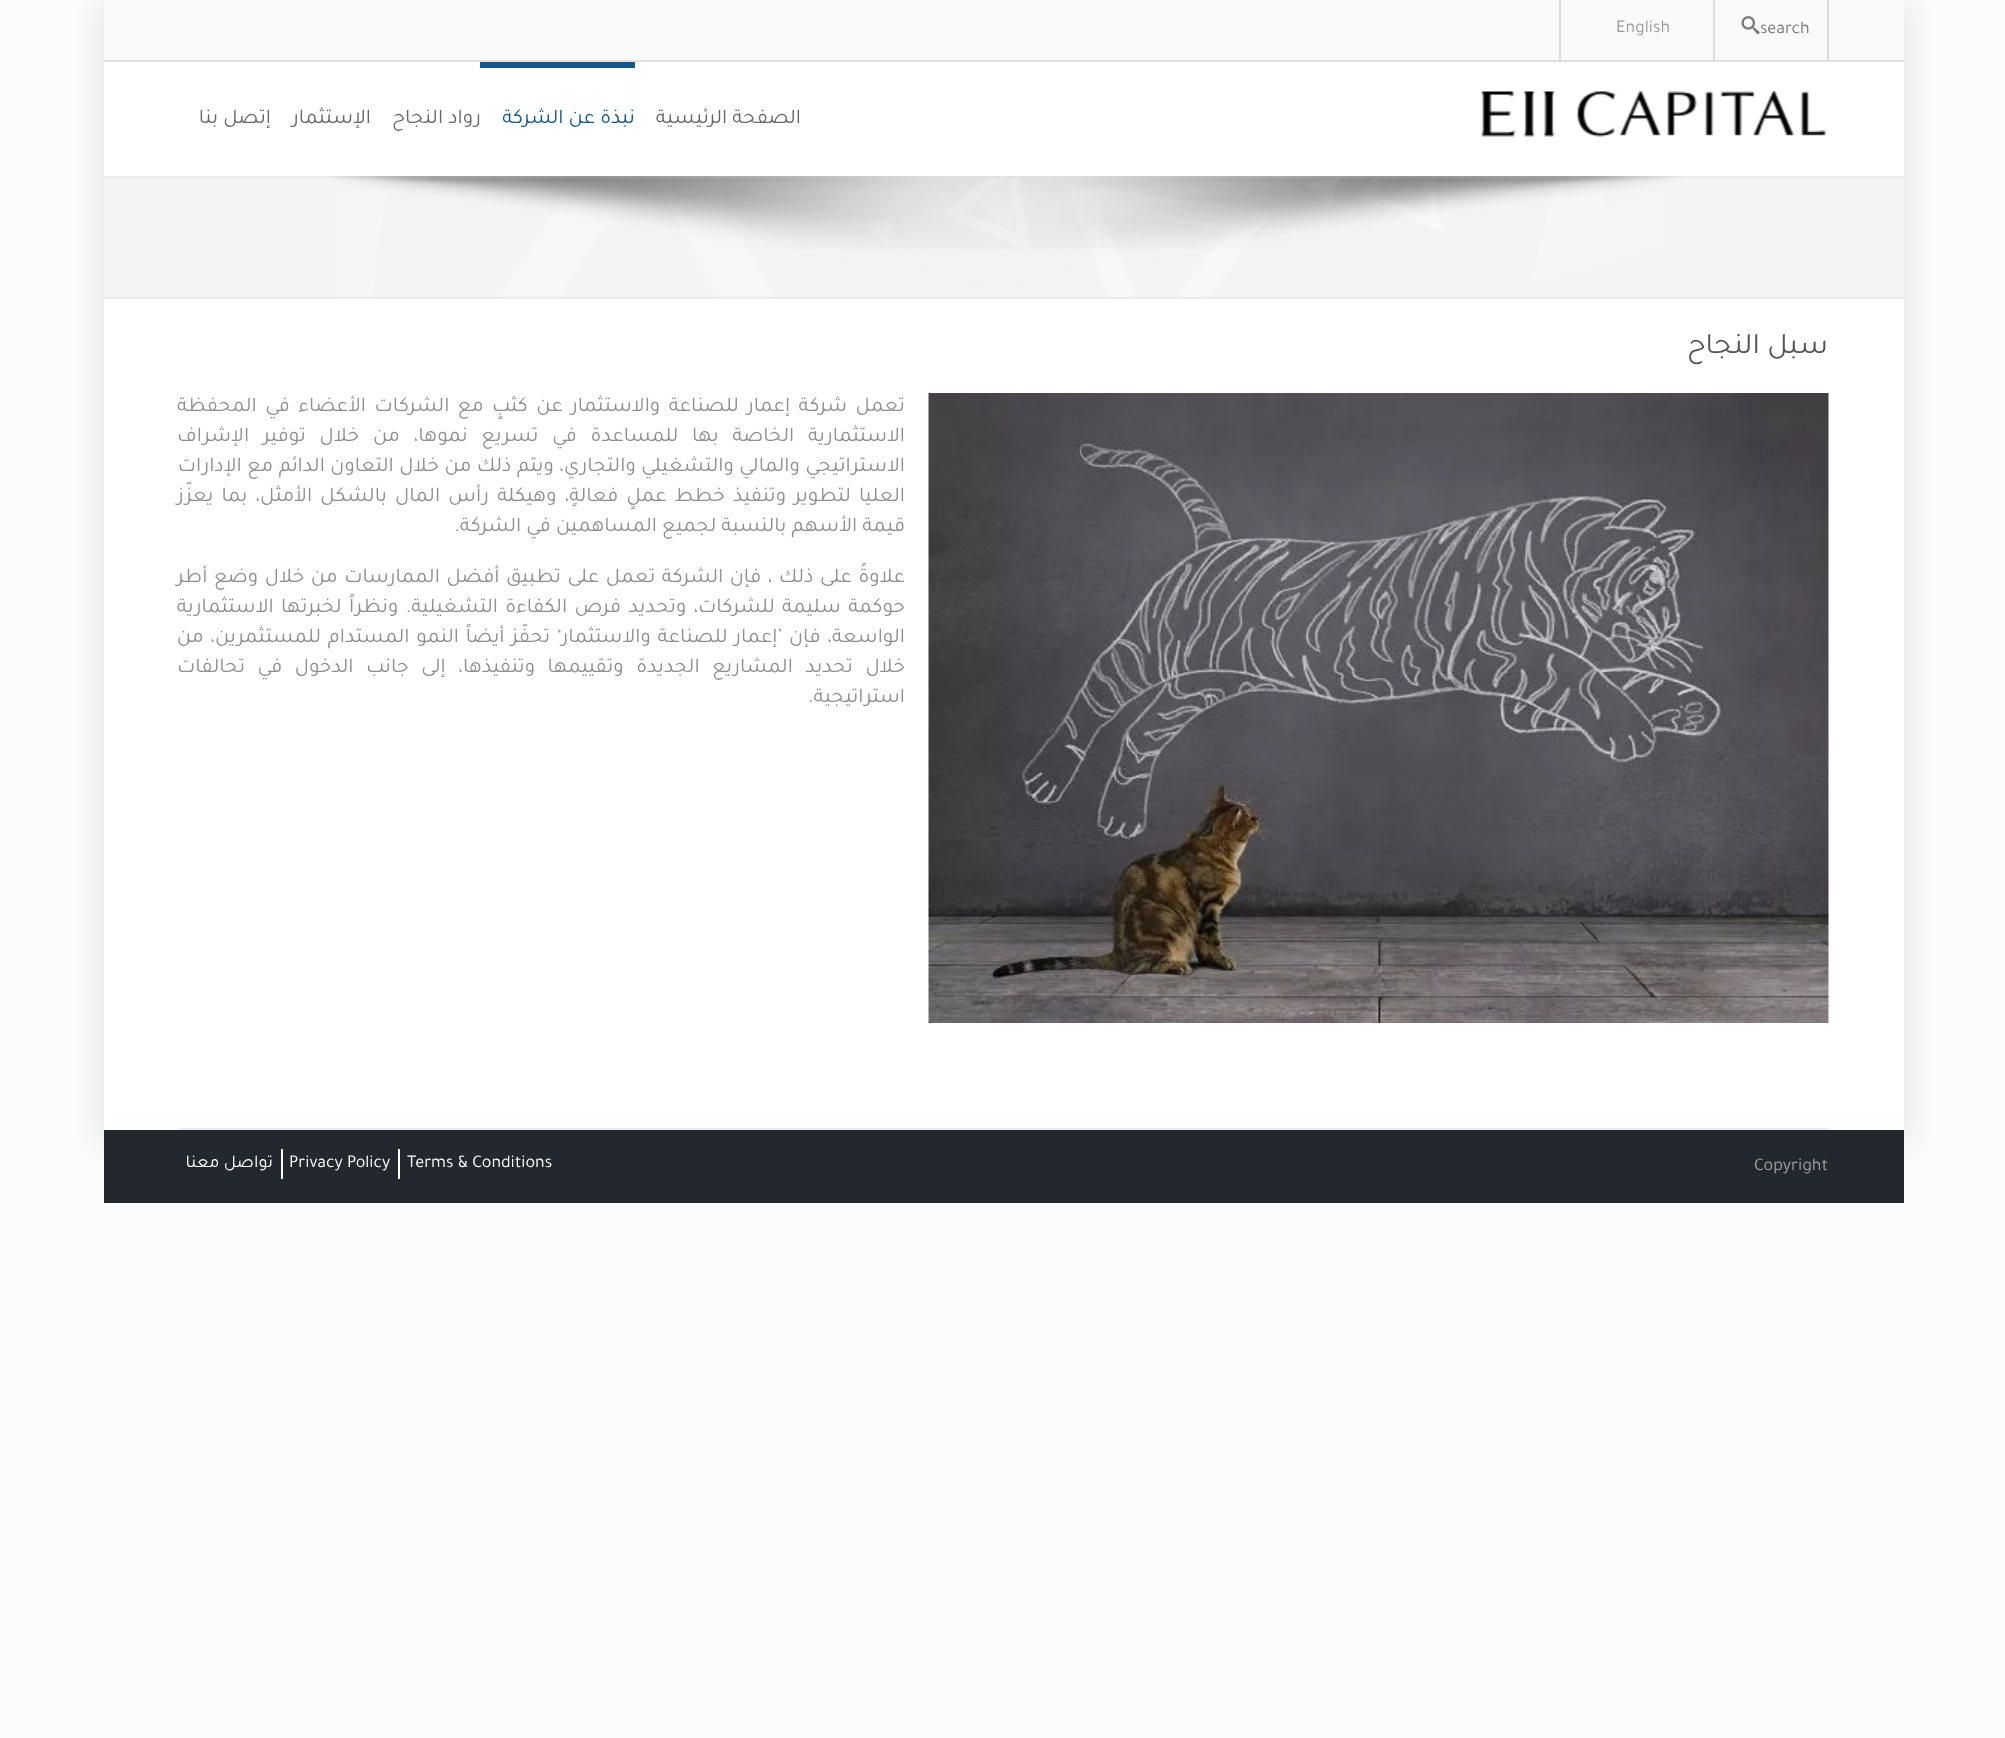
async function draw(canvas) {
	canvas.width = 2005;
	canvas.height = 1738;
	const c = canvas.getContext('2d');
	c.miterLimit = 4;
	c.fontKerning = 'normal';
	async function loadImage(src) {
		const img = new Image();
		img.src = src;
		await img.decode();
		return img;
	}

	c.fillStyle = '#fbfbfb';
	c.fillRect(0, 0, 2005, 1738);
	c.fillStyle = '#0000001a';
	c.filter = 'blur(14px)';
	c.beginPath();
	c.rect(101, 5, 1806, 1135);
	c.fill();
	c.filter = 'none';
	for (const [x, y, w, h, color] of [
		[104, 299, 1800, 831, '#fff'],
		[104, 0, 1800, 60, '#fafafa'],
		[104, 60, 1800, 2, '#e1e1e1'],
		[1559, 0, 2, 63, '#ddd'],
		[1827, 0, 2, 60, '#ddd'],
	]) {
		c.fillStyle = color;
		c.fillRect(x, y, w, h);
	}
	c.font = '18px Tajawal';
	c.fillStyle = '#777';
	c.fillText('search', 1760, 33);
	c.drawImage(await loadImage('img1.png'), 1741, 16, 19, 19);
	c.fillStyle = '#ddd';
	c.fillRect(1713, 0, 2, 63);
	c.fillStyle = '#999';
	c.fillText('English', 1616, 32);
	c.fillStyle = '#fff';
	c.fillRect(104, 62, 1800, 114);
	c.fillStyle = '#eee';
	c.fillRect(104, 176, 1800, 2);
	c.drawImage(await loadImage('img2.png'), 1481, 91, 346, 46);
	c.direction = 'rtl';
	c.font = '21px Tajawal';
	c.fillStyle = '#68676a';
	c.fillText('الصفحة الرئيسية', 801, 123);
	c.fillStyle = '#165788';
	c.fillRect(480, 62, 155, 6);
	c.fillText('نبذة عن الشركة', 635, 123);
	c.fillStyle = '#68676a';
	for (const [text, x, y] of [
		['رواد النجاح', 481, 123],
		['الإستثمار', 371, 123],
		['إتصل بنا', 271, 123],
	]) {
		c.fillText(text, x, y);
	}
	c.fillStyle = '#f4f4f4';
	c.fillRect(104, 178, 1800, 119);
	c.drawImage(await loadImage('img4.png'), 335, 178, 1329, 119);
	c.drawImage(await loadImage('img3.png'), 322, 176, 1362, 73);
	c.fillStyle = '#ebebeb';
	c.fillRect(104, 297, 1800, 2);
	c.font = '30px Tajawal';
	c.fillStyle = '#555';
	c.fillText('سبل النجاح', 1828, 353);
	c.drawImage(await loadImage('img5.png'), 928, 393, 901, 630);
	c.wordSpacing = '3.4px';
	c.font = '21px Tajawal';
	c.fillStyle = '#8f8f8f';
	c.fillText('تعمل شركة إعمار للصناعة والاستثمار عن كثبٍ مع الشركات الأعضاء في المحفظة', 905, 411);
	c.wordSpacing = '8.75px';
	c.fillText('الاستثمارية الخاصة بها للمساعدة في تسريع نموها، من خلال توفير الإشراف', 905, 441);
	c.wordSpacing = '0.5px';
	c.fillText('الاستراتيجي والمالي والتشغيلي والتجاري، ويتم ذلك من خلال التعاون الدائم مع الإدارات', 905, 471);
	c.wordSpacing = '3.1px';
	c.fillText('العليا لتطوير وتنفيذ خطط عملٍ فعالةٍ، وهيكلة رأس المال بالشكل الأمثل، بما يعزّز', 905, 501);
	c.wordSpacing = '0px';
	c.fillText('قيمة الأسهم بالنسبة لجميع المساهمين في الشركة.', 905, 531);
	c.wordSpacing = '1.5px';
	c.fillText('علاوةً على ذلك ، فإن الشركة تعمل على تطبيق أفضل الممارسات من خلال وضع أطر', 905, 582);
	c.wordSpacing = '2.25px';
	c.fillText('حوكمة سليمة للشركات، وتحديد فرص الكفاءة التشغيلية. ونظراً لخبرتها الاستثمارية', 905, 612);
	c.wordSpacing = '1.75px';
	c.fillText('الواسعة، فإن ’إعمار للصناعة والاستثمار‘ تحفّز أيضاً النمو المستدام للمستثمرين، من', 905, 642);
	c.wordSpacing = '7.5px';
	c.fillText('خلال تحديد المشاريع الجديدة وتقييمها وتنفيذها، إلى جانب الدخول في تحالفات', 905, 672);
	c.wordSpacing = '0px';
	c.fillText('استراتيجية.', 905, 702);
	c.fillStyle = '#ebebeb';
	c.fillRect(179, 1128, 1650, 2);
	c.fillStyle = '#23282e';
	c.fillRect(104, 1130, 1800, 73);
	c.direction = 'ltr';
	c.font = '18px Tajawal';
	c.fillStyle = '#a0a0a0';
	c.fillText('Copyright', 1754, 1170);
	c.fillStyle = '#fff';
	c.fillRect(398, 1149, 2, 30);
	c.fillText('Terms & Conditions', 407, 1167);
	c.fillRect(281, 1149, 2, 30);
	c.fillText('Privacy Policy', 289, 1167);
	c.direction = 'rtl';
	c.fillText('تواصل معنا', 273, 1167);
}

draw(document.querySelector('canvas'));
